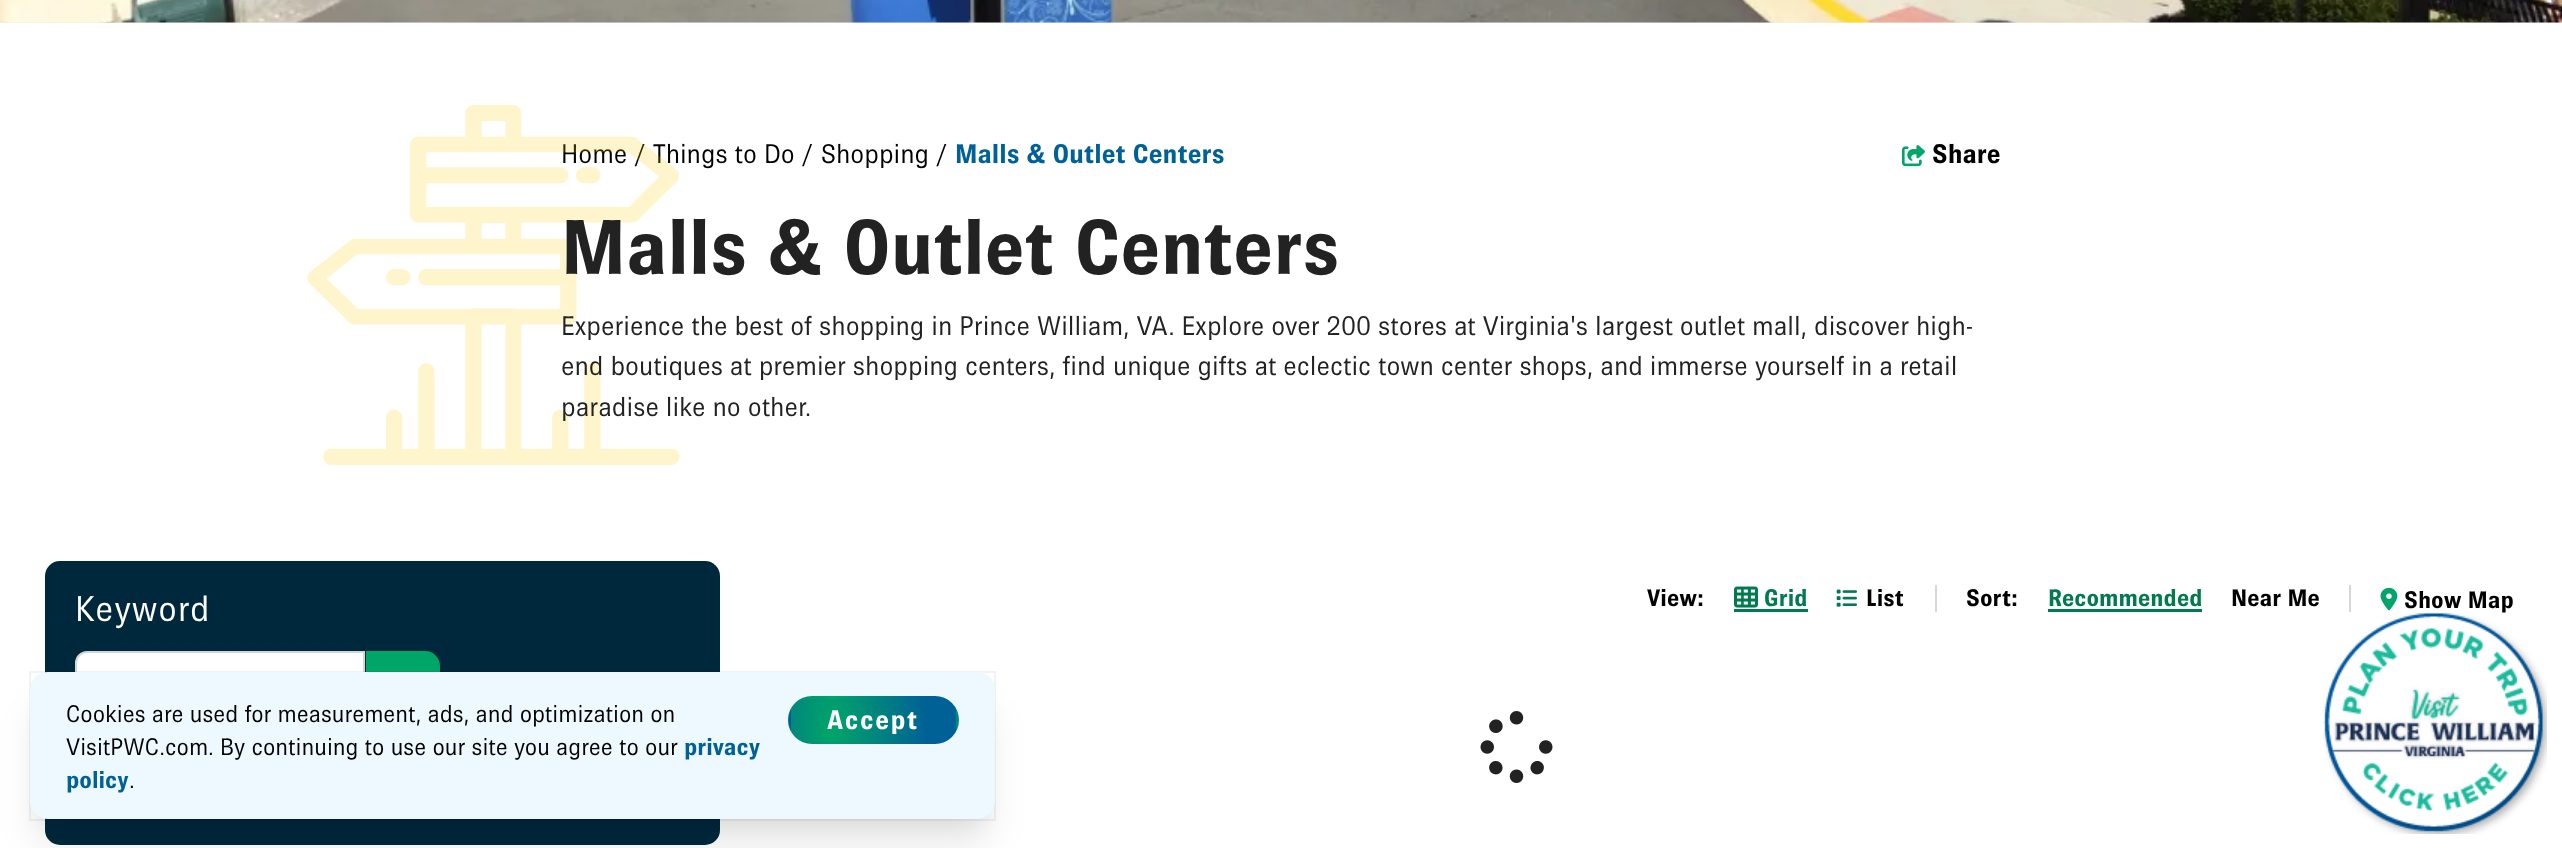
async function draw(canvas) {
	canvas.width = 2562;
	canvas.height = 848;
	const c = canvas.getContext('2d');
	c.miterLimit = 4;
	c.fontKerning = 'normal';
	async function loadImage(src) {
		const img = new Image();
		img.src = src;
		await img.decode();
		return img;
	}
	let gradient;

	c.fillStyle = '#fff';
	c.fillRect(0, 0, 2562, 848);
	c.fillStyle = '#eee';
	c.fillRect(0, 22, 2562, 1);
	c.drawImage(await loadImage('img1.png'), 0, 0, 2562, 23);
	c.font = '27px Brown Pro';
	c.fillStyle = '#000';
	for (const [text, x, y] of [
		['Home /', 561, 163],
		['Things to Do /', 653, 163],
		['Shopping /', 821, 163],
	]) {
		c.fillText(text, x, y);
	}
	c.font = 'bold 27px Brown Pro';
	c.fillStyle = '#006196';
	c.fillText('Malls & Outlet Centers', 955, 163);
	c.drawImage(await loadImage('img2.png'), 1902, 145, 23, 22);
	c.fillStyle = '#000';
	c.fillText('Share', 1932, 163);
	c.drawImage(await loadImage('img3.png'), 307, 105, 373, 360);
	c.font = 'bold 78px Brown Pro';
	c.fillStyle = '#222';
	c.fillText('Malls & Outlet Centers', 561, 274);
	c.font = '27px Brown Pro';
	for (const [text, x, y] of [
		['Experience the best of shopping in Prince William, VA. Explore over 200 stores at Virginia\'s largest outlet mall, discover high-', 561, 335],
		['end boutiques at premier shopping centers, find unique gifts at eclectic town center shops, and immerse yourself in a retail', 561, 375],
		['paradise like no other.', 561, 416],
	]) {
		c.fillText(text, x, y);
	}
	c.fillStyle = '#00283d';
	c.beginPath();
	c.roundRect(45, 561, 675, 284, 15);
	c.fill();
	c.letterSpacing = '1px';
	c.font = '36px Brown Pro';
	c.fillStyle = '#fff';
	c.fillText('Keyword', 75, 621);
	c.beginPath();
	c.roundRect(76, 652, 288, 69, [11, 0, 0, 11]);
	c.fill();
	c.strokeStyle = '#d6d6d6';
	c.lineWidth = 2;
	c.stroke();
	c.fillStyle = '#00a668';
	c.beginPath();
	c.roundRect(366, 651, 74, 71, [0, 15, 15, 0]);
	c.fill();
	c.fillStyle = '#d6d6d6';
	c.fillRect(1935, 585, 2, 27);
	c.letterSpacing = '0px';
	c.font = 'bold 24px Brown Pro';
	c.fillStyle = '#000';
	c.fillText('View:', 1647, 606);
	c.fillStyle = '#007a4e';
	c.fillRect(1734, 609, 74, 3);
	c.drawImage(await loadImage('img4.png'), 1734, 586, 24, 22);
	c.fillText('Grid', 1764, 606);
	c.drawImage(await loadImage('img5.png'), 1836, 589, 21, 18);
	c.fillStyle = '#000';
	c.fillText('List', 1866, 606);
	c.fillStyle = '#d6d6d6';
	c.fillRect(2349, 585, 2, 27);
	c.fillStyle = '#000';
	c.fillText('Sort:', 1966, 606);
	c.fillStyle = '#007a4e';
	c.fillRect(2048, 609, 154, 3);
	c.fillText('Recommended', 2048, 606);
	c.fillStyle = '#000';
	c.fillText('Near Me', 2231, 606);
	c.drawImage(await loadImage('img6.png'), 2380, 587, 18, 24);
	c.fillText('Show Map', 2404, 608);
	c.drawImage(await loadImage('img7.png'), 1480, 711, 73, 72);
	c.fillStyle = '#0000000a';
	c.filter = 'blur(7.5px)';
	c.beginPath();
	c.roundRect(38, 695, 949, 132, 11);
	c.fill();
	c.filter = 'none';
	c.fillStyle = '#0000001a';
	c.filter = 'blur(19px)';
	c.beginPath();
	c.roundRect(38, 710, 949, 132, 11);
	c.fill();
	c.filter = 'none';
	c.strokeStyle = '#0000000d';
	c.strokeRect(30, 672, 965, 148);
	c.fillStyle = '#edf8ff';
	c.beginPath();
	c.roundRect(30, 672, 965, 147, 18);
	c.fill();
	c.font = '24px Brown Pro';
	c.fillStyle = '#000';
	c.fillText('Cookies are used for measurement, ads, and optimization on', 66, 722);
	c.fillText('VisitPWC.com. By continuing to use our site you agree to our', 66, 755);
	c.font = 'bold 24px Brown Pro';
	c.fillStyle = '#006196';
	c.fillText('privacy', 684, 755);
	c.fillText('policy', 66, 788);
	c.font = '24px Brown Pro';
	c.fillStyle = '#000';
	c.fillText('.', 129, 788);
	c.save();
	c.beginPath();
	c.roundRect(788, 696, 171, 48, 24);
	c.clip();
	gradient = c.createRadialGradient(832, 252.49, 0, 832, 252.49, 95);
	gradient.addColorStop(0, '#00a668');
	gradient.addColorStop(1, '#006196');
	c.fillStyle = gradient;
	c.beginPath();
	c.rect(800, 696, 147, 3);
	c.save();
	c.clip();
	c.scale(1, 263 / 95);
	c.fillRect(0, 0, 2562, 307);
	c.restore();
	gradient = c.createRadialGradient(667, 267.66, 0, 667, 267.66, 95);
	gradient.addColorStop(0, '#00a668');
	gradient.addColorStop(1, '#006196');
	c.fillStyle = gradient;
	c.beginPath();
	c.rect(788, 708, 3, 24);
	c.save();
	c.clip();
	c.scale(1, 263 / 95);
	c.fillRect(0, 0, 2562, 307);
	c.restore();
	gradient = c.createRadialGradient(832, 267.66, 0, 832, 267.66, 95);
	gradient.addColorStop(0, '#00a668');
	gradient.addColorStop(1, '#006196');
	c.fillStyle = gradient;
	c.beginPath();
	c.rect(791, 699, 165, 42);
	c.save();
	c.clip();
	c.scale(1, 263 / 95);
	c.fillRect(0, 0, 2562, 307);
	c.restore();
	gradient = c.createRadialGradient(997, 267.66, 0, 997, 267.66, 95);
	gradient.addColorStop(0, '#00a668');
	gradient.addColorStop(1, '#006196');
	c.fillStyle = gradient;
	c.beginPath();
	c.rect(956, 708, 3, 24);
	c.save();
	c.clip();
	c.scale(1, 263 / 95);
	c.fillRect(0, 0, 2562, 307);
	c.restore();
	gradient = c.createRadialGradient(832, 282.83, 0, 832, 282.83, 95);
	gradient.addColorStop(0, '#00a668');
	gradient.addColorStop(1, '#006196');
	c.fillStyle = gradient;
	c.beginPath();
	c.rect(800, 741, 147, 3);
	c.save();
	c.clip();
	c.scale(1, 263 / 95);
	c.fillRect(0, 0, 2562, 307);
	c.restore();
	c.restore();
	c.letterSpacing = '1.5px';
	c.font = 'bold 27px Brown Pro';
	c.fillStyle = '#fff';
	c.fillText('Accept', 827, 729);
	c.drawImage(await loadImage('img8.png'), 2323, 612, 224, 222);
}

draw(document.querySelector('canvas'));
